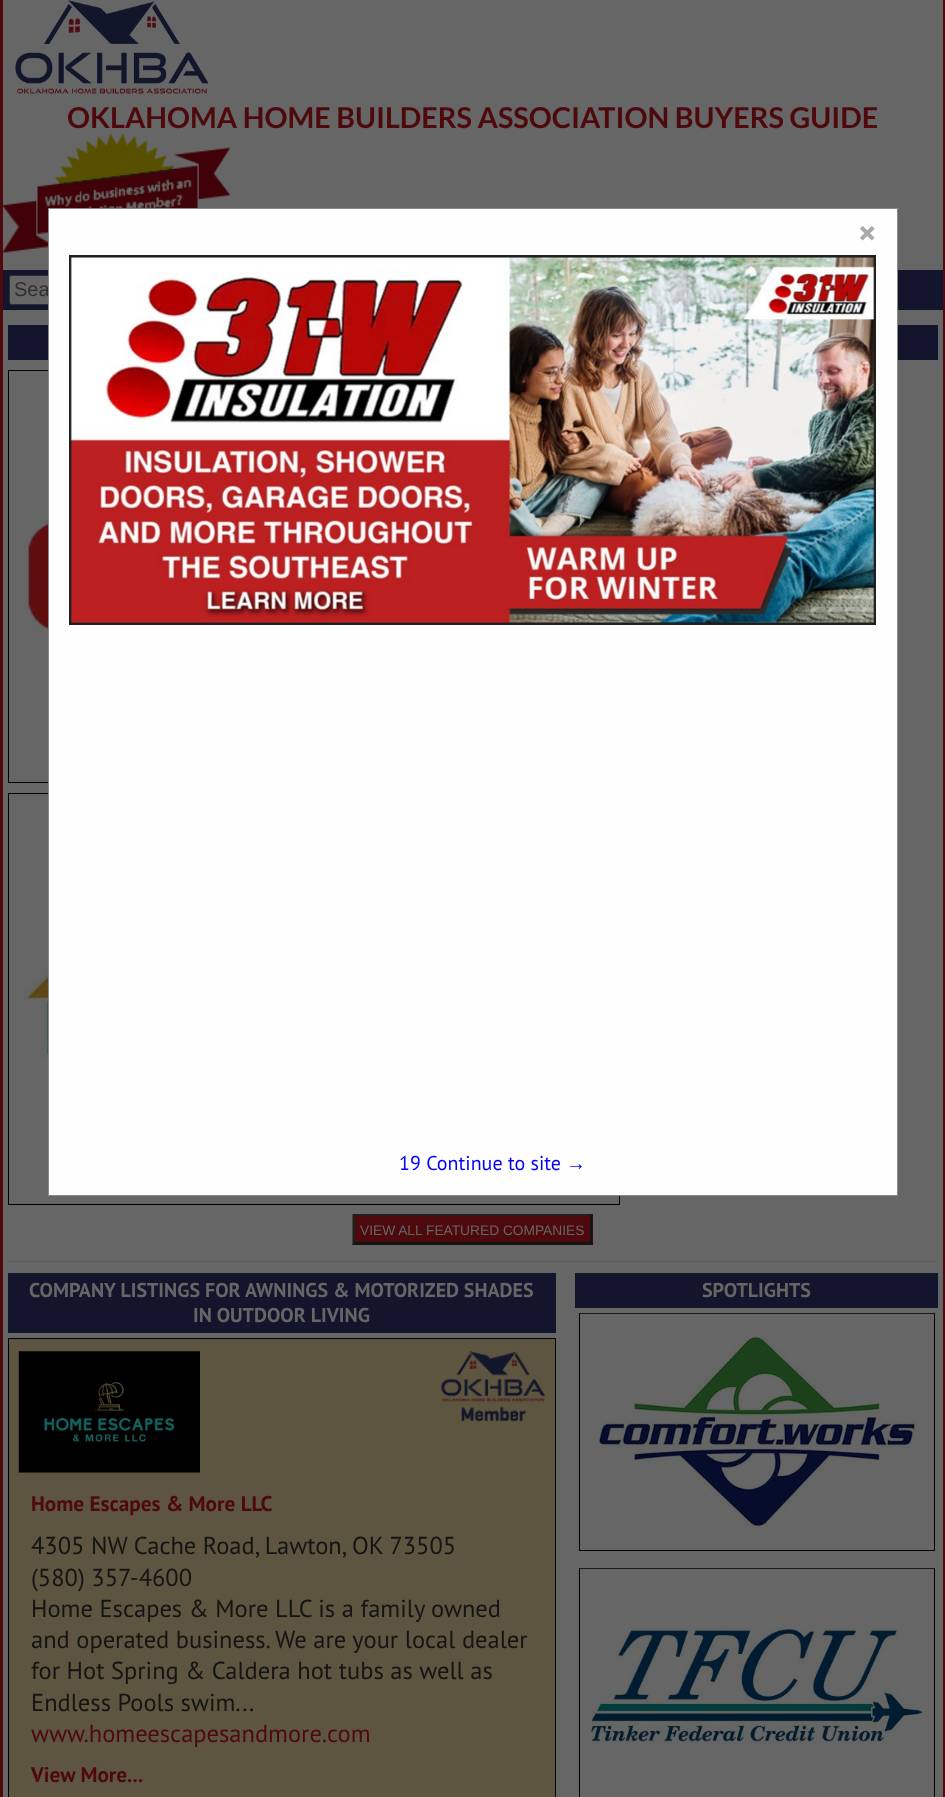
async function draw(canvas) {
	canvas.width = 945;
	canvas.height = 1797;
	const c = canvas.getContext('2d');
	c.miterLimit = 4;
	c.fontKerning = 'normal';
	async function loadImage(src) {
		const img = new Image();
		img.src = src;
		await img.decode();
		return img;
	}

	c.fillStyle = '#666';
	c.fillRect(0, 0, 945, 1797);
	c.fillStyle = '#4e090d';
	c.fillRect(943, 0, 2, 1797);
	c.fillRect(0, 0, 3, 1797);
	c.drawImage(await loadImage('img1.png'), 15, 0, 194, 94);
	c.font = 'bold 28.75px Lato';
	c.fillText('OKLAHOMA HOME BUILDERS ASSOCIATION BUYERS GUIDE', 67, 128);
	c.drawImage(await loadImage('img2.png'), 2, 133, 228, 120);
	c.fillStyle = '#12152c';
	c.fillRect(3, 270, 940, 40);
	c.fillStyle = '#666';
	c.beginPath();
	c.roundRect(9.5, 275.5, 321, 29, 2);
	c.fill();
	c.strokeStyle = '#2f2f2f';
	c.stroke();
	c.font = '20px Liberation Sans';
	c.fillStyle = '#2f2f2f';
	c.fillText('Sea', 14, 296);
	c.fillStyle = '#12152c';
	c.fillRect(8, 325, 930, 35);
	c.strokeStyle = '#000';
	c.strokeRect(8.5, 370.5, 611, 412);
	c.strokeRect(8.5, 793.5, 611, 411);
	c.fillStyle = '#fefefe';
	c.beginPath();
	c.rect(48.5, 208.5, 849, 987);
	c.fill();
	c.strokeStyle = '#888';
	c.stroke();
	c.font = 'bold 35px PT Sans';
	c.fillStyle = '#aaa';
	c.fillText('×', 858, 245);
	c.strokeStyle = '#1f1f1f';
	c.lineWidth = 3;
	c.strokeRect(70.5, 256.5, 804, 367);
	c.drawImage(await loadImage('img3.png'), 70, 257, 805, 366);
	c.font = '20px PT Sans';
	c.fillStyle = '#00f';
	c.fillText('19 Continue to site', 399, 1170);
	c.font = '20px Liberation Sans';
	c.fillText('→', 566, 1170);
	c.fillStyle = '#5b5b5b';
	c.fillRect(8, 1261, 930, 1);
	c.drawImage(await loadImage('img4.png'), 14, 516, 34, 121);
	c.drawImage(await loadImage('img5.png'), 14, 918, 34, 161);
	c.fillStyle = '#4e090d';
	c.fillRect(353, 1214, 240, 31);
	c.fillStyle = '#1e1f20';
	c.beginPath();
	c.moveTo(352, 1214);
	c.lineTo(592, 1214);
	c.lineTo(590, 1216);
	c.lineTo(355, 1216);
	c.closePath();
	c.fill();
	c.fillStyle = '#141415';
	c.beginPath();
	c.moveTo(592.5, 1214);
	c.lineTo(592.5, 1245);
	c.lineTo(590, 1242.5);
	c.lineTo(590, 1216);
	c.closePath();
	c.fill();
	c.beginPath();
	c.moveTo(592, 1245);
	c.lineTo(352, 1245);
	c.lineTo(355, 1242);
	c.lineTo(590, 1242);
	c.closePath();
	c.fill();
	c.fillStyle = '#1e1f20';
	c.beginPath();
	c.moveTo(352.5, 1245);
	c.lineTo(352.5, 1214);
	c.lineTo(355, 1216);
	c.lineTo(355, 1242.5);
	c.closePath();
	c.fill();
	c.font = '13.75px Liberation Sans';
	c.fillStyle = '#666';
	c.fillText('VIEW ALL FEATURED COMPANIES', 360, 1235);
	c.fillStyle = '#12152c';
	c.fillRect(8, 1273, 548, 60);
	c.font = 'bold 20px PT Sans';
	c.fillStyle = '#666';
	c.fillText('COMPANY LISTINGS FOR AWNINGS & MOTORIZED SHADES', 29, 1297);
	c.fillText('IN OUTDOOR LIVING', 193, 1322);
	c.fillStyle = '#5d5540';
	c.beginPath();
	c.rect(8.5, 1338.5, 547, 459);
	c.fill();
	c.strokeStyle = '#000';
	c.lineWidth = 1;
	c.stroke();
	c.drawImage(await loadImage('img6.png'), 18, 1351, 182, 122);
	c.drawImage(await loadImage('img7.png'), 441, 1351, 104, 71);
	c.font = 'bold 21.25px PT Sans';
	c.fillStyle = '#4e090d';
	c.fillText('Home Escapes & More LLC', 31, 1511);
	c.font = '24.5px PT Sans';
	c.fillStyle = '#141414';
	for (const [text, x, y] of [
		['4305 NW Cache Road, Lawton, OK 73505', 31, 1554],
		['(580) 357-4600', 31, 1586],
		['Home Escapes & More LLC is a family owned', 31, 1617],
		['and operated business. We are your local dealer', 31, 1648],
		['for Hot Spring & Caldera hot tubs as well as', 31, 1679],
		['Endless Pools swim...', 31, 1711],
	]) {
		c.fillText(text, x, y);
	}
	c.fillStyle = '#4e090d';
	c.fillText('www.homeescapesandmore.com', 31, 1742);
	c.font = 'bold 21.25px PT Sans';
	c.fillText('View More...', 31, 1782);
	c.fillStyle = '#12152c';
	c.fillRect(575, 1273, 363, 35);
	c.font = 'bold 20px PT Sans';
	c.fillStyle = '#666';
	c.fillText('SPOTLIGHTS', 702, 1297);
	c.strokeRect(579.5, 1313.5, 355, 237);
	c.drawImage(await loadImage('img8.png'), 580, 1313, 354, 214);
	c.strokeRect(579.5, 1568.5, 355, 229);
	c.drawImage(await loadImage('img9.png'), 580, 1568, 354, 177);
}

draw(document.querySelector('canvas'));
